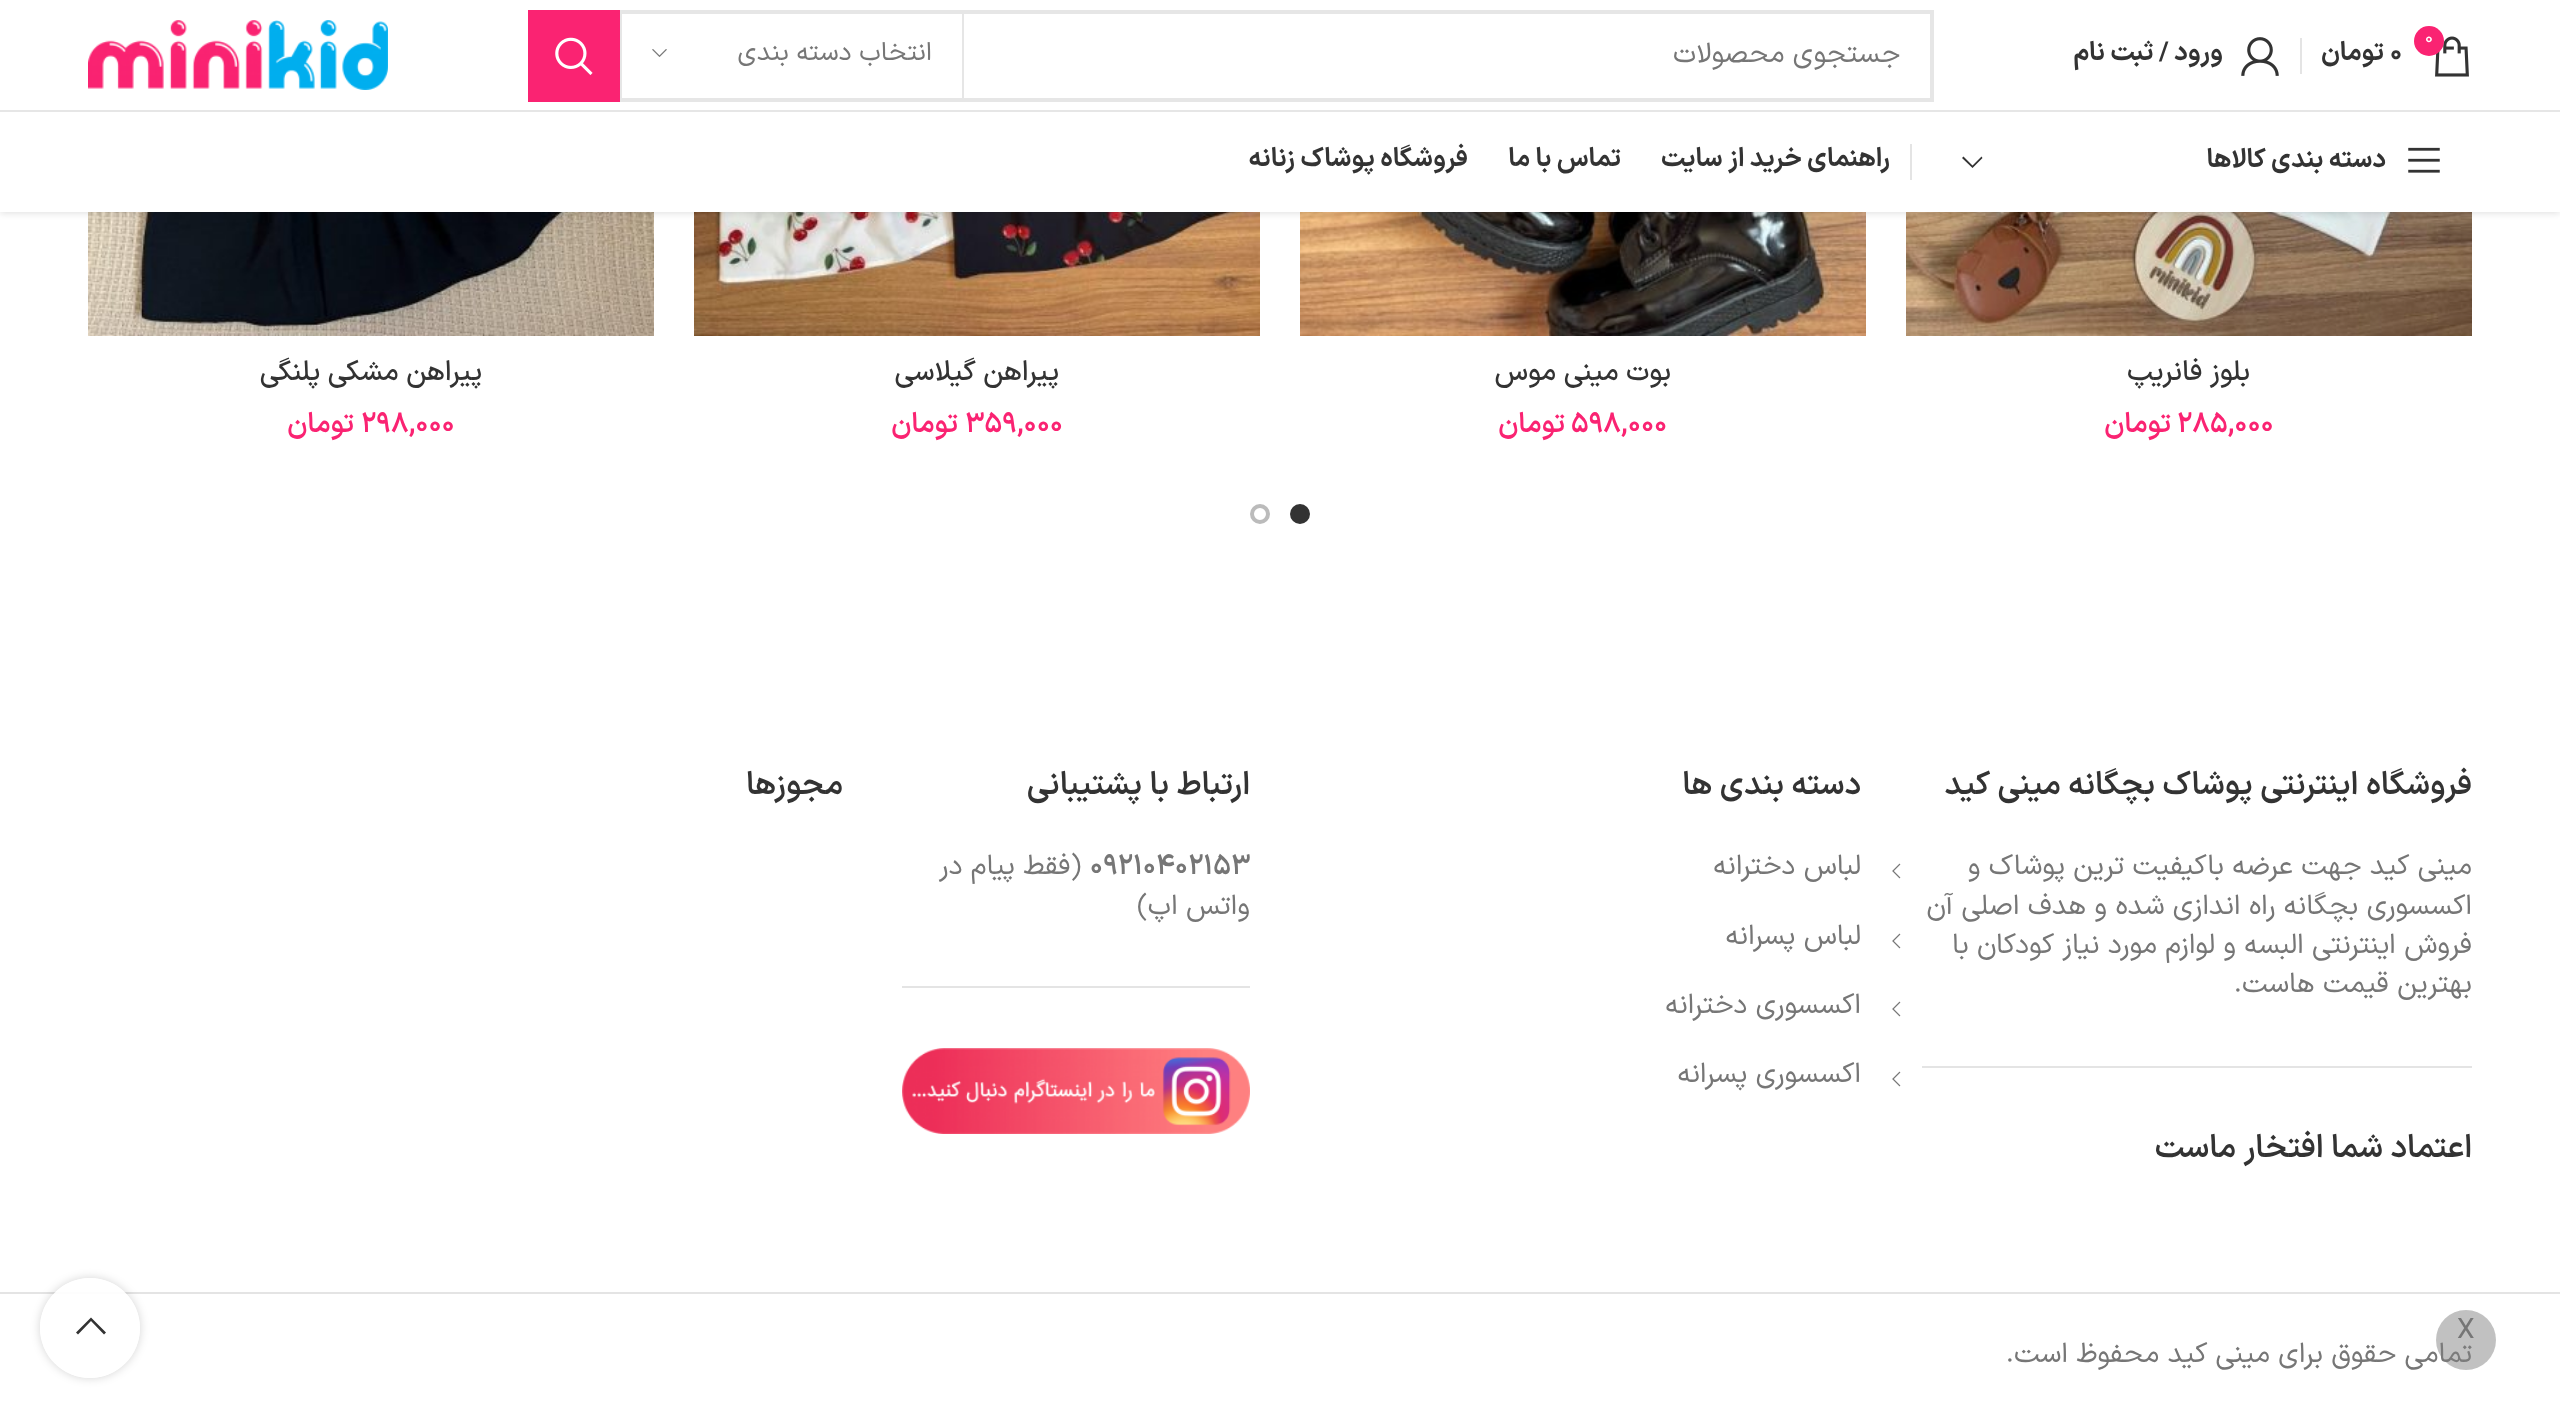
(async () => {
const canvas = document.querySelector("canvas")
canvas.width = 2560
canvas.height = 1418
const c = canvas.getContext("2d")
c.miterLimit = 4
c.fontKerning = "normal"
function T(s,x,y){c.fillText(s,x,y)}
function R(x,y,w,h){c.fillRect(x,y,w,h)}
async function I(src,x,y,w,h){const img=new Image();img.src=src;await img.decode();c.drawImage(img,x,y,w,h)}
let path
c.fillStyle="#fff"
R(0,0,2560,1418)
await I("7.png",1906,212,566,124)
await I("8.png",1300,212,566,124)
await I("9.png",694,212,566,124)
await I("10.png",88,212,566,124)
c.fillStyle="#0000001a"
c.filter="blur(3px)"
c.beginPath()
c.rect(0,2,2560,212)
c.fill()
c.filter="none"
c.fillStyle="#fff"
R(0,0,2560,110)
c.fillStyle="#e6e6e6"
R(0,110,2560,2)
await I("1.png",2435,36,34,41)
c.fillStyle="#fa2372"
c.beginPath()
c.arc(2429,41,15,0,7)
c.fill()
c.font="18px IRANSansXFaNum"
c.fillStyle="#fff"
T("0",2425,43)
c.font="bold 26px IRANSansXFaNum"
c.fillStyle="#333"
T("0",2390,60)
c.direction="rtl"
T("تومان",2384,60)
c.fillStyle="#e4e4e4"
R(2300,38,2,36)
await I("2.png",2241,37,38,39)
c.fillStyle="#333"
T("ورود / ثبت نام",2223,60)
c.strokeStyle="#e6e6e6"
c.lineWidth=4
c.strokeRect(530,12,1402,88)
c.font="28px IRANSansXFaNum"
c.fillStyle="#767676"
T("جستجوی محصولات",1900,62)
c.fillStyle="#e6e6e6"
R(962,14,2,84)
R(620,14,2,84)
c.font="26px IRANSansXFaNum"
c.fillStyle="#767676"
T("انتخاب دسته بندی",932,60)
await I("3.png",652,49,15,8)
c.fillStyle="#fa2372"
R(528,10,92,92)
await I("4.png",555,37,38,38)
await I("5.png",88,20,300,70)
c.fillStyle="#fff"
R(0,112,2560,100)
await I("6.png",2408,147,32,26)
c.font="bold 26px IRANSansXFaNum"
c.fillStyle="#333"
T("دسته بندی کالاها",2386,167)
path = new Path2D("M1981.5 156.5l-9 9l-9-9l-1.5 1.5l10.5 10l10-10z")
c.fill(path)
c.fillStyle="#e4e4e4"
R(1910,144,2,36)
c.fillStyle="#333"
T("راهنمای خرید از سایت",1890,166)
T("تماس با ما",1621,166)
T("فروشگاه پوشاک زنانه",1468,166)
c.font="500 28px IRANSansXFaNum"
T("بلوز فانریپ",2250,380)
c.direction="ltr"
c.font="600 28px IRANSansXFaNum"
c.fillStyle="#fa2372"
T("285,000",2177,432)
c.direction="rtl"
T("تومان",2171,432)
c.font="500 28px IRANSansXFaNum"
c.fillStyle="#333"
T("بوت مینی موس",1671,380)
c.direction="ltr"
c.font="600 28px IRANSansXFaNum"
c.fillStyle="#fa2372"
T("598,000",1571,432)
c.direction="rtl"
T("تومان",1565,432)
c.font="500 28px IRANSansXFaNum"
c.fillStyle="#333"
T("پیراهن گیلاسی",1059,380)
c.direction="ltr"
c.font="600 28px IRANSansXFaNum"
c.fillStyle="#fa2372"
T("359,000",965,432)
c.direction="rtl"
T("تومان",958,432)
c.font="500 28px IRANSansXFaNum"
c.fillStyle="#333"
T("پیراهن مشکی پلنگی",482,380)
c.direction="ltr"
c.font="600 28px IRANSansXFaNum"
c.fillStyle="#fa2372"
T("298,000",361,432)
c.direction="rtl"
T("تومان",354,432)
c.fillStyle="#333"
c.beginPath()
c.arc(1300,514,8,0,7)
c.fill()
c.strokeStyle="#333"
c.stroke()
c.beginPath()
c.arc(1260,514,8,0,7)
c.strokeStyle="#bbb"
c.stroke()
c.fillStyle="#e4e4e4"
R(1922,1066,550,2)
c.font="600 32px IRANSansXFaNum"
c.fillStyle="#333"
T("فروشگاه اینترنتی پوشاک بچگانه مینی کید",2472,794)
c.font="28px IRANSansXFaNum"
c.fillStyle="#767676"
T("مینی کید جهت عرضه باکیفیت ترین پوشاک و",2472,874)
T("اکسسوری بچگانه راه اندازی شده و هدف اصلی آن",2472,914)
T("فروش اینترنتی البسه و لوازم مورد نیاز کودکان با",2472,953)
T("بهترین قیمت هاست.",2472,992)
c.font="600 32px IRANSansXFaNum"
c.fillStyle="#333"
T("اعتماد شما افتخار ماست",2472,1157)
T("دسته بندی ها",1861,794)
await I("11.png",1892,863,9,16)
c.font="28px IRANSansXFaNum"
c.fillStyle="#767676"
T("لباس دخترانه",1861,874)
await I("11.png",1892,933,9,16)
T("لباس پسرانه",1861,944)
await I("11.png",1892,1001,9,16)
T("اکسسوری دخترانه",1861,1013)
await I("11.png",1892,1071,9,16)
T("اکسسوری پسرانه",1861,1082)
c.fillStyle="#e4e4e4"
R(902,986,348,2)
c.font="600 32px IRANSansXFaNum"
c.fillStyle="#333"
T("ارتباط با پشتیبانی",1250,794)
c.direction="ltr"
c.font="600 28px IRANSansXFaNum"
c.fillStyle="#767676"
T("09210402153",1090,874)
c.direction="rtl"
c.font="28px IRANSansXFaNum"
T("(فقط پیام در",1081,874)
T("واتس اپ)",1250,914)
await I("12.png",902,1048,348,86)
c.font="600 32px IRANSansXFaNum"
c.fillStyle="#333"
T("مجوزها",843,794)
c.fillStyle="#e4e4e4"
R(0,1292,2560,2)
c.font="28px IRANSansXFaNum"
c.fillStyle="#767676"
T("تمامی حقوق برای مینی کید محفوظ است.",2472,1362)
c.save()
path = new Path2D("M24 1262h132v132h-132zm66 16c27.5 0 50 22.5 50 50c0 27.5-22.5 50-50 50c-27.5 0-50-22.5-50-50c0-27.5 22.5-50 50-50z")
c.clip(path,"evenodd")
c.fillStyle="#0000002b"
c.filter="blur(5px)"
c.beginPath()
c.roundRect(40,1278,100,100,50)
c.fill()
c.filter="none"
c.restore()
c.fillStyle="#ffffffe6"
c.beginPath()
c.arc(90,1328,50,0,7)
c.fill()
c.fillStyle="#333"
path = new Path2D("M104 1334.5l2-2l-15-15l-15 15l2 2l13-13.5z")
c.fill(path)
c.fillStyle="#8080807d"
c.beginPath()
c.arc(2466,1340,30,0,7)
c.fill()
c.direction="ltr"
c.fillStyle="#767676"
T("X",2457,1338)
})()
